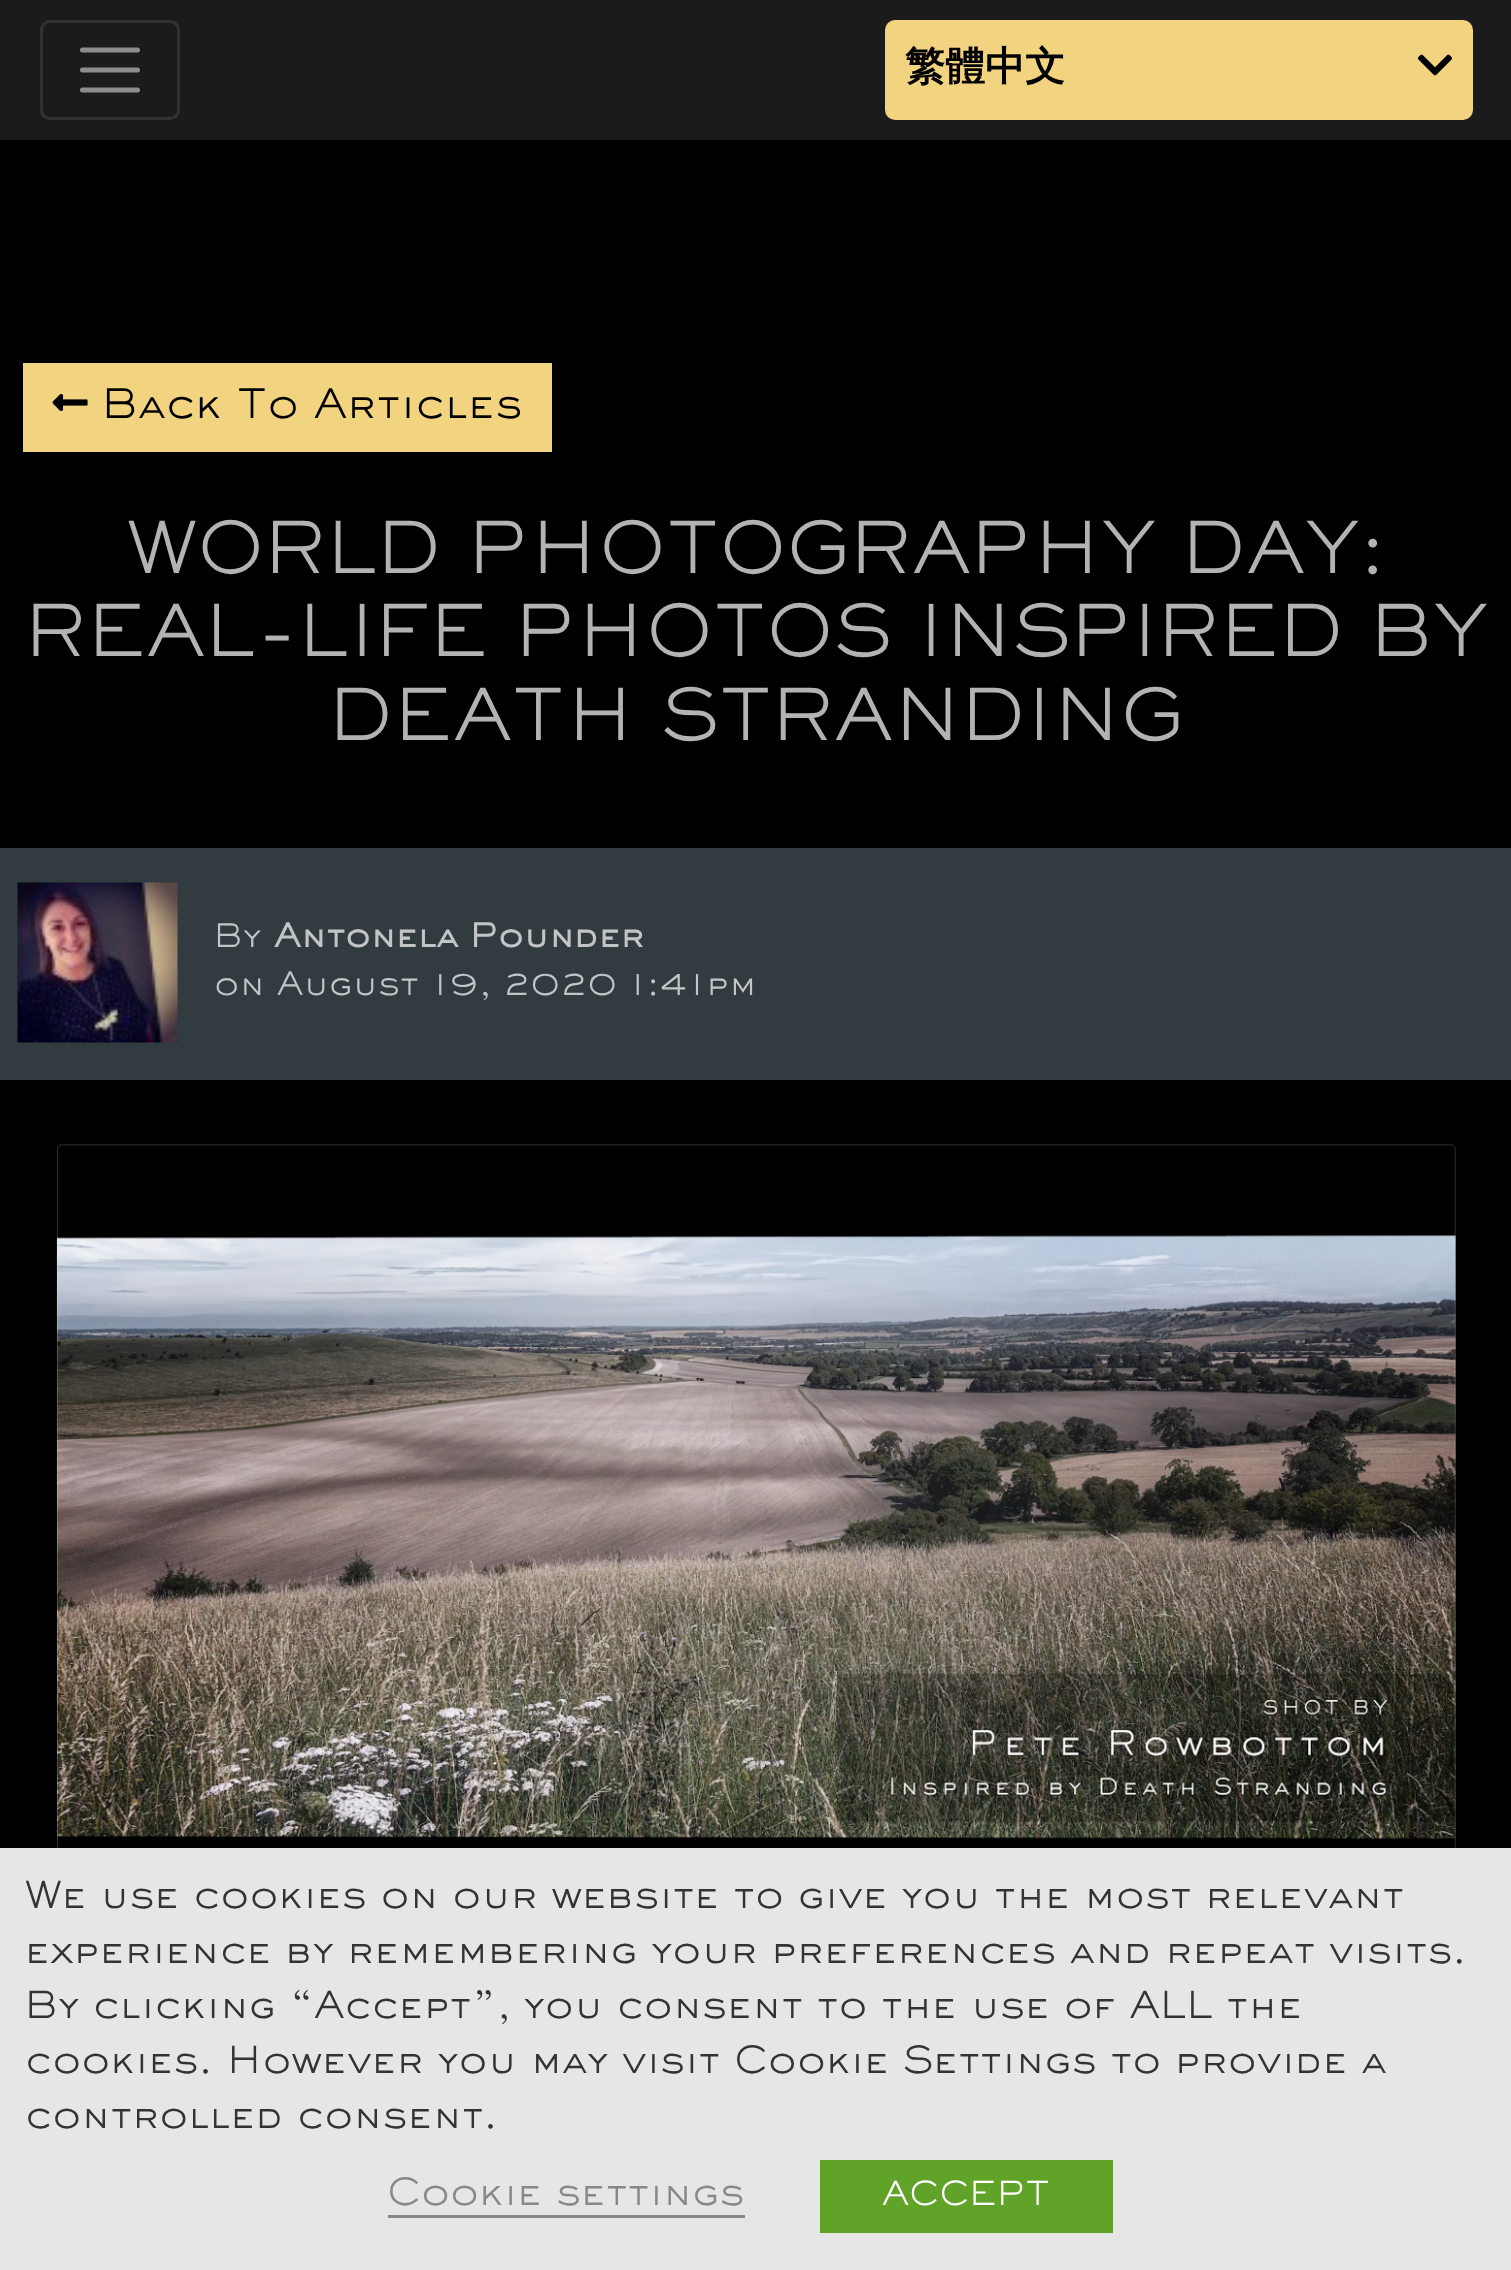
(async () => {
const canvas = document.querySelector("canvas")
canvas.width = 1511
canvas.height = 2270
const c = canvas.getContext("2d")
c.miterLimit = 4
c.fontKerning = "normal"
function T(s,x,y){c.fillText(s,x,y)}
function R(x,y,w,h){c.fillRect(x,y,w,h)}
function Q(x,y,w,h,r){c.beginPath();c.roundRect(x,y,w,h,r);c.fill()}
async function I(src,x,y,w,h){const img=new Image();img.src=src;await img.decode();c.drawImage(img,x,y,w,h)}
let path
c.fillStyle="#000"
R(0,0,1511,2270)
c.fillStyle="#1b1b1b"
R(0,0,1511,140)
c.beginPath()
c.roundRect(41.5,21.5,137,97,8.5)
c.strokeStyle="#323232"
c.lineWidth=3
c.stroke()
path = new Path2D("M82.5 50h55m-55 20h55m-55 20h55")
c.strokeStyle="#8d8d8d"
c.lineWidth=5
c.lineCap="round"
c.stroke(path)
c.fillStyle="#f2d480"
Q(885,20,588,100,10)
c.font="bold 40px WenQuanYi Zen Hei"
c.fillStyle="#000"
T("繁體中文",905,80)
await I("1.png",1418,54,34,22)
c.fillStyle="#f2d480"
R(23,363,529,89)
await I("2.png",52,393,36,19)
c.font="300 40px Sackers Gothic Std"
c.fillStyle="#000"
T("Back To Articles",102,418)
c.font="300 70px Sackers Gothic Std"
c.fillStyle="#b3b3b3"
T("WORLD PHOTOGRAPHY DAY:",127,573)
T("REAL-LIFE PHOTOS INSPIRED BY",25,656)
T("DEATH STRANDING",329,740)
c.fillStyle="#323b40"
R(0,848,1511,232)
await I("3.png",17,882,161,161)
c.font="300 32px Sackers Gothic Std"
c.fillStyle="#c2c4c6"
T("By",214,947)
c.font="bold 32px Sackers Gothic Std"
T("Antonela Pounder",274,947)
c.font="300 32px Sackers Gothic Std"
T("on August 19, 2020 1:41pm",214,995)
await I("4.png",56,1144,1400,787)
c.fillStyle="#ffffffe6"
R(0,1848,1511,422)
c.font="300 36.65px Sackers Gothic Std"
c.fillStyle="#333"
T("We use cookies on our website to give you the most relevant",25,1908)
T("experience by remembering your preferences and repeat visits.",25,1963)
T("By clicking “Accept”, you consent to the use of ALL the",25,2018)
T("cookies. However you may visit Cookie Settings to provide a",25,2073)
T("controlled consent.",25,2128)
c.fillStyle="#898888"
T("Cookie settings",387,2205)
R(388,2215,357,3)
c.fillStyle="#61a229"
R(820,2160,293,73)
c.font="300 32.5px Sackers Gothic Std"
c.fillStyle="#fff"
T("ACCEPT",882,2205)
})()
